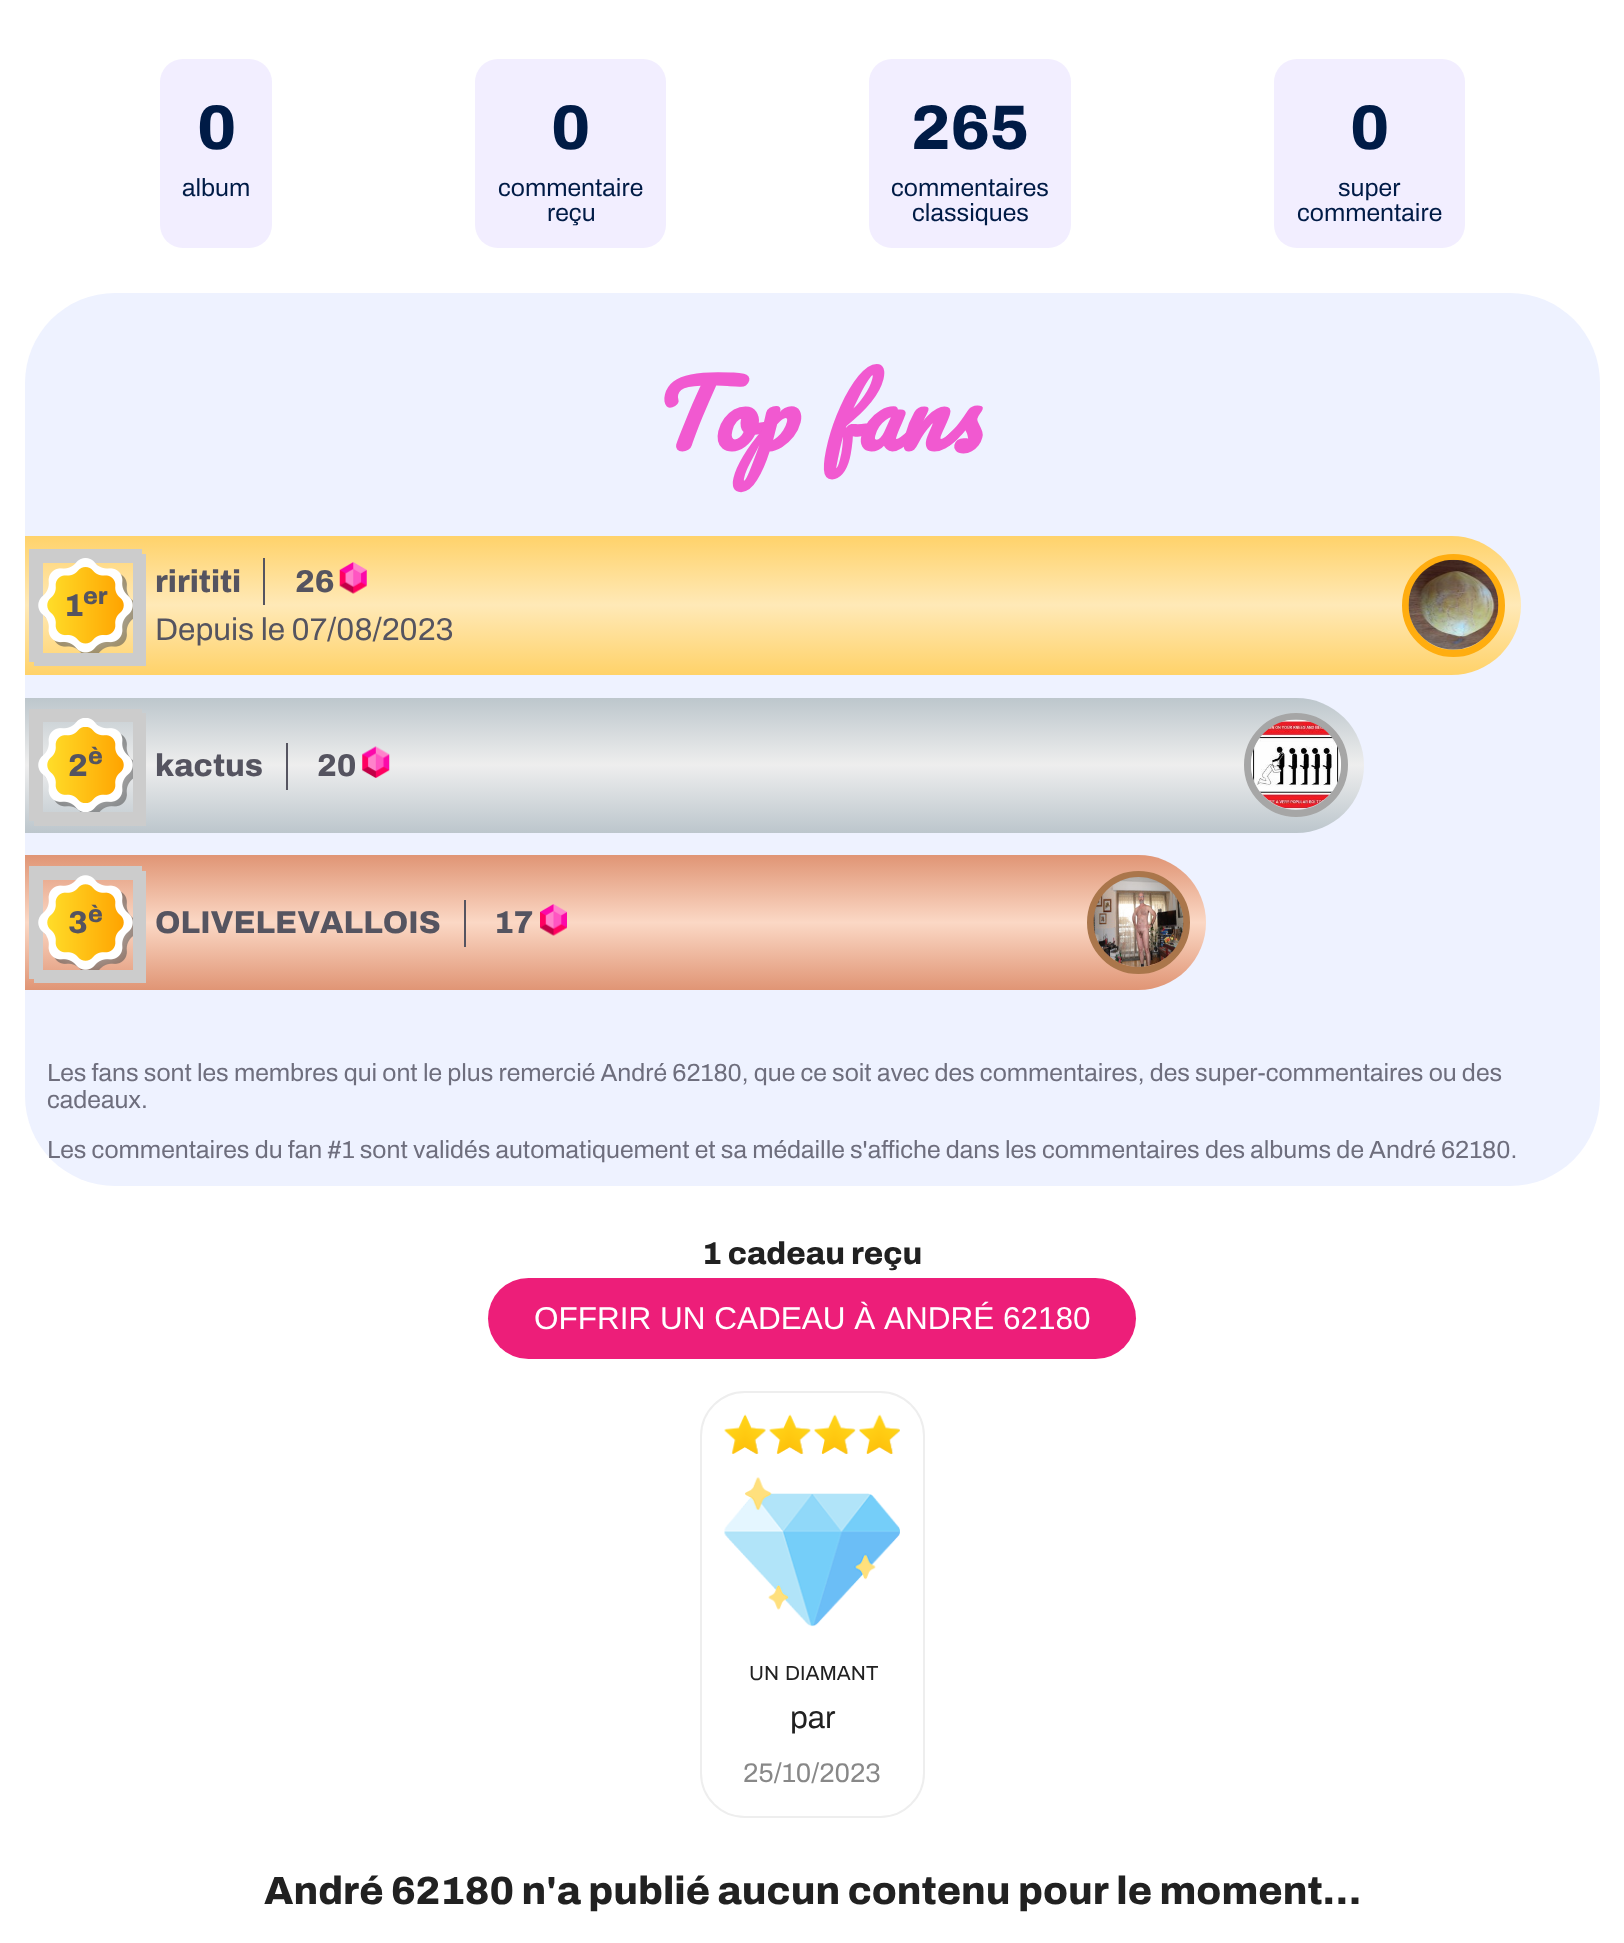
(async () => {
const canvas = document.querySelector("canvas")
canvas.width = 1624
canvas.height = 1943
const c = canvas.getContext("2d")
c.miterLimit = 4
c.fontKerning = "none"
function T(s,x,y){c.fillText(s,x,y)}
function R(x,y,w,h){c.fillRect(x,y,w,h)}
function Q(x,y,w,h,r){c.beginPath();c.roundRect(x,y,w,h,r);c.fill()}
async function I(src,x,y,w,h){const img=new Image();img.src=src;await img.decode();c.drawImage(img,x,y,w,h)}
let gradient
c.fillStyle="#fff"
R(0,0,1624,1943)
c.fillStyle="#f2eeff"
Q(160,59,112,189,23)
c.font="800 63px Archivo"
c.fillStyle="#001b46"
T("0",197,149)
c.font="24.75px Archivo"
T("album",182,196)
c.fillStyle="#f2eeff"
Q(475,59,191,189,23)
c.font="800 63px Archivo"
c.fillStyle="#001b46"
T("0",551,149)
c.font="24.75px Archivo"
T("commentaire",498,196)
T("reçu",547,221)
c.fillStyle="#f2eeff"
Q(869,59,202,189,23)
c.font="800 63px Archivo"
c.fillStyle="#001b46"
T("265",911,149)
c.font="24.75px Archivo"
T("commentaires",891,196)
T("classiques",912,221)
c.fillStyle="#f2eeff"
Q(1274,59,191,189,23)
c.font="800 63px Archivo"
c.fillStyle="#001b46"
T("0",1350,149)
c.font="24.75px Archivo"
T("super",1338,196)
T("commentaire",1297,221)
c.fillStyle="#eef2ff"
Q(25,293,1575,893,90)
c.wordSpacing="5px"
c.font="italic bold 90px Pacifico"
c.fillStyle="#f159d0"
T("Top fans",648,451)
gradient = c.createLinearGradient(773,535,773,675)
gradient.addColorStop(0,"#ffd269")
gradient.addColorStop(.5,"#ffe9b7")
gradient.addColorStop(1,"#ffd269")
c.fillStyle = gradient
c.beginPath()
c.roundRect(25,536,1496,139,[0,69.5,69.5,0])
c.fill()
c.strokeStyle="#ccc"
c.lineWidth=9
c.strokeRect(38.5,558.5,103,103)
await I("2.png",43,563,90,90)
c.strokeRect(33.5,553.5,104,104)
await I("1.png",38,558,95,95)
await I("3.png",47,567,77,77)
c.wordSpacing="0px"
c.font="800 31.5px Archivo"
c.fillStyle="#555460"
T("1",64,616)
c.font="800 24px Archivo"
T("er",83,604)
R(263,558,2,47)
c.font="800 31.5px Archivo"
T("rirititi",155,592)
T("26",295,592)
await I("4.png",339,562,28,32)
c.font="31.5px Archivo"
T("Depuis le 07/08/2023",155,640)
c.beginPath()
c.arc(1453.5,605.5,48,0,7)
c.strokeStyle="#ffad0f"
c.lineWidth=7
c.stroke()
await I("5.png",1408,559,91,91)
gradient = c.createLinearGradient(694,697,694,833)
gradient.addColorStop(0,"#bcc6cc")
gradient.addColorStop(.5,"#eee")
gradient.addColorStop(1,"#bcc6cc")
c.fillStyle = gradient
c.beginPath()
c.roundRect(25,698,1339,135,[0,67.5,67.5,0])
c.fill()
c.strokeStyle="#ccc"
c.lineWidth=9
c.strokeRect(38.5,717.5,103,104)
await I("7.png",43,723,90,89)
c.strokeRect(33.5,713.5,104,103)
await I("6.png",38,718,95,94)
await I("8.png",47,727,77,76)
c.font="800 31.5px Archivo"
c.fillStyle="#555460"
T("2",68,776)
c.font="800 24px Archivo"
T("è",88,764)
R(286,743,2,47)
c.font="800 31.5px Archivo"
T("kactus",155,776)
T("20",317,776)
await I("9.png",362,746,28,32)
c.beginPath()
c.arc(1296,765,48.5,0,7)
c.strokeStyle="#a6a6a6"
c.lineWidth=7
c.stroke()
await I("10.png",1251,719,90,91)
gradient = c.createLinearGradient(615,855,615,990)
gradient.addColorStop(0,"#e09575")
gradient.addColorStop(.5,"#fbd8c5")
gradient.addColorStop(1,"#e09575")
c.fillStyle = gradient
c.beginPath()
c.roundRect(25,855,1181,135,[0,67.5,67.5,0])
c.fill()
c.strokeStyle="#ccc"
c.lineWidth=9
c.strokeRect(38.5,875.5,103,103)
await I("12.png",44,881,89,89)
c.strokeRect(33.5,870.5,104,104)
await I("11.png",38,875,95,95)
await I("13.png",47,884,77,77)
c.fillStyle="#555460"
T("3",68,933)
c.font="800 24px Archivo"
T("è",88,922)
R(464,900,2,47)
c.font="800 31.5px Archivo"
T("OLIVELEVALLOIS",155,933)
T("17",494,933)
await I("14.png",540,904,27,32)
c.beginPath()
c.arc(1138.5,922.5,48,0,7)
c.strokeStyle="#aa764b"
c.lineWidth=7
c.stroke()
await I("15.png",1093,877,91,90)
c.font="24.75px Archivo"
c.fillStyle="#6e6e7d"
T("Les fans sont les membres qui ont le plus remercié André 62180, que ce soit avec des commentaires, des super-commentaires ou des",47,1081)
T("cadeaux.",47,1108)
T("Les commentaires du fan #1 sont validés automatiquement et sa médaille s'affiche dans les commentaires des albums de André 62180.",47,1158)
c.font="800 31.5px Archivo"
c.fillStyle="#212121"
T("1 cadeau reçu",702,1264)
c.fillStyle="#ed1e79"
Q(488,1278,648,81,40.5)
c.font="31.5px Liberation Sans"
c.fillStyle="#fff"
T("OFFRIR UN CADEAU À ANDRÉ 62180",534,1329)
c.beginPath()
c.roundRect(701,1392,223,425,44)
c.strokeStyle="#eee"
c.lineWidth=2
c.stroke()
await I("16.png",724,1414,176,213)
c.font="20.5px Archivo"
c.fillStyle="#212121"
T("UN",749,1680)
T("DIAMANT",785,1680)
c.font="31.5px Archivo"
T("par",790,1728)
c.font="27px Archivo"
c.fillStyle="#888"
T("25/10/2023",743,1782)
c.font="800 39.4px Archivo"
c.fillStyle="#212121"
T("André 62180 n'a publié aucun contenu pour le moment…",264,1904)
})()
